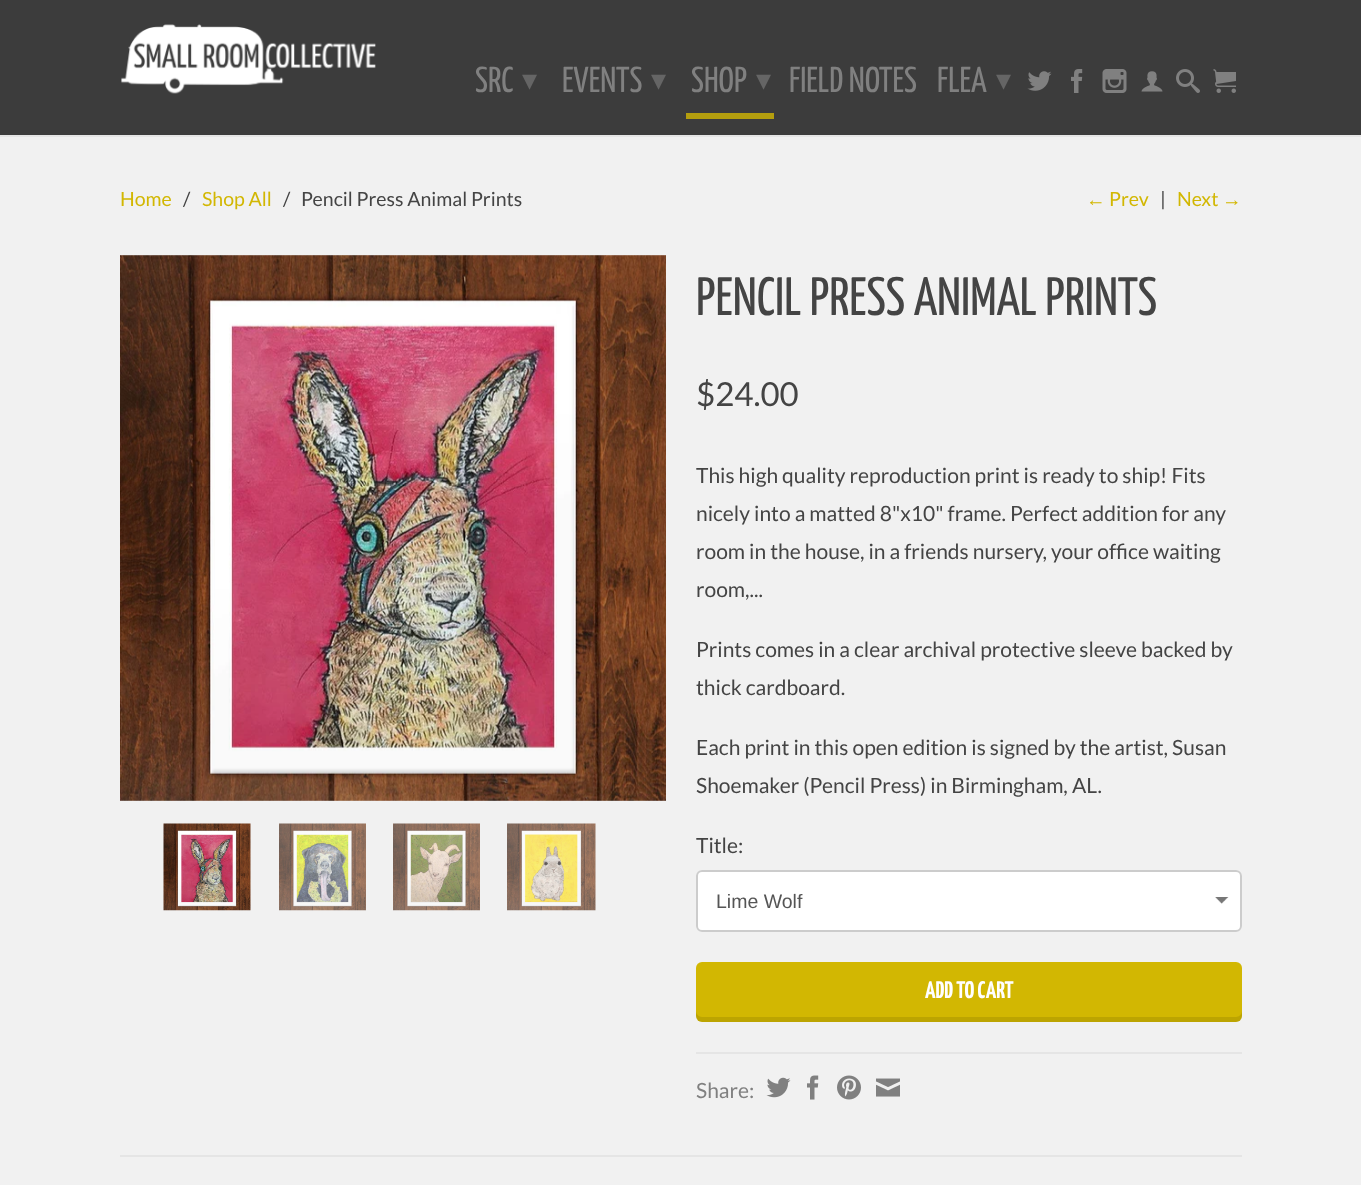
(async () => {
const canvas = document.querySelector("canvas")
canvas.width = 1361
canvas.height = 1185
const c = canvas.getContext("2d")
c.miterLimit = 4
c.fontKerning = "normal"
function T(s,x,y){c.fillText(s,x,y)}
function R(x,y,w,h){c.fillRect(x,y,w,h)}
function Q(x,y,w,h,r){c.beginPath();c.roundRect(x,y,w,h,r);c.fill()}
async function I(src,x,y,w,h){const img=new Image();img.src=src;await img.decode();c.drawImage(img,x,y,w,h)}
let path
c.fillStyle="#f1f1f1"
R(0,0,1361,1185)
c.fillStyle="#3c3c3c"
R(0,0,1361,135)
c.fillStyle="#e5e5e5"
R(0,135,1361,2)
await I("1.png",121,24,255,70)
c.font="36px Yanone Kaffeesatz"
c.fillStyle="#808080"
T("SRC",475,92)
c.font="30px DejaVu Sans"
c.fillStyle="#656565"
T("▾",522,90)
c.font="36px Yanone Kaffeesatz"
c.fillStyle="#808080"
T("EVENTS",562,92)
c.font="30px DejaVu Sans"
c.fillStyle="#656565"
T("▾",651,90)
c.font="36px Yanone Kaffeesatz"
c.fillStyle="#808080"
T("SHOP",691,92)
c.font="30px DejaVu Sans"
c.fillStyle="#656565"
T("▾",756,90)
c.fillStyle="#b49e0e"
R(686,113,88,6)
c.font="36px Yanone Kaffeesatz"
c.fillStyle="#808080"
T("FIELD NOTES",789,92)
T("FLEA",937,92)
c.font="30px DejaVu Sans"
c.fillStyle="#656565"
T("▾",996,90)
await I("2.png",1027,71,25,20)
await I("3.png",1071,69,12,24)
await I("4.png",1102,69,25,24)
await I("5.png",1141,71,22,21)
await I("6.png",1176,69,24,24)
await I("7.png",1213,69,23,24)
c.font="19.5px Lato"
c.fillStyle="#d2b702"
T("Home",120,206)
c.fillStyle="#444"
T("/",183,206)
c.fillStyle="#d2b702"
T("Shop All",202,206)
c.fillStyle="#444"
T("/",283,206)
T("Pencil Press Animal Prints",301,206)
c.font="19.5px Liberation Serif"
c.fillStyle="#d2b702"
T("←",1086,206)
c.font="19.5px Lato"
T("Prev",1109,206)
c.fillStyle="#444"
T("|",1160,206)
c.fillStyle="#d2b702"
T("Next",1177,206)
c.font="19.5px Liberation Serif"
T("→",1222,206)
await I("8.png",120,255,546,546)
await I("9.png",163,823,88,88)
await I("10.png",279,823,87,88)
await I("11.png",393,823,87,88)
await I("12.png",507,823,89,88)
c.font="54px Yanone Kaffeesatz"
c.fillStyle="#444"
T("PENCIL PRESS ANIMAL PRINTS",696,315)
c.font="33px Lato"
T("$24.00",696,406)
c.font="21px Lato"
T("This high quality reproduction print is ready to ship! Fits",696,483)
T("nicely into a matted 8\"x10\" frame. Perfect addition for any",696,521)
T("room in the house, in a friends nursery, your office waiting",696,559)
T("room,...",696,597)
T("Prints comes in a clear archival protective sleeve backed by",696,657)
T("thick cardboard.",696,695)
T("Each print in this open edition is signed by the artist, Susan",696,755)
T("Shoemaker (Pencil Press) in Birmingham, AL.",696,793)
T("Title:",696,853)
c.fillStyle="#fff"
Q(696,870,546,62,6)
await I("13.png",1215,897,14,7)
c.beginPath()
c.roundRect(697,871,544,60,5)
c.strokeStyle="#ccc"
c.lineWidth=2
c.stroke()
c.font="19.5px Liberation Sans"
c.fillStyle="#555"
T("Lime Wolf",716,908)
c.fillStyle="#d2b702"
Q(696,962,546,60,6)
c.fillStyle="#0000001a"
path = new Path2D("M696 1011v5c0 3 3 6 6 6h534c3 0 6-3 6-6v-5c0 3-3 6-6 6h-534c-3 0-6-3-6-6z")
c.fill(path)
c.font="bold 24px Yanone Kaffeesatz"
c.fillStyle="#fff"
T("ADD TO CART",925,998)
c.fillStyle="#e5e5e5"
R(696,1052,546,2)
c.font="21px Lato"
c.fillStyle="#808080"
T("Share:",696,1098)
await I("14.png",766,1077,25,21)
await I("15.png",807,1075,12,25)
await I("16.png",837,1075,24,25)
await I("17.png",876,1078,24,19)
c.fillStyle="#e5e5e5"
R(120,1155,1122,2)
})()
